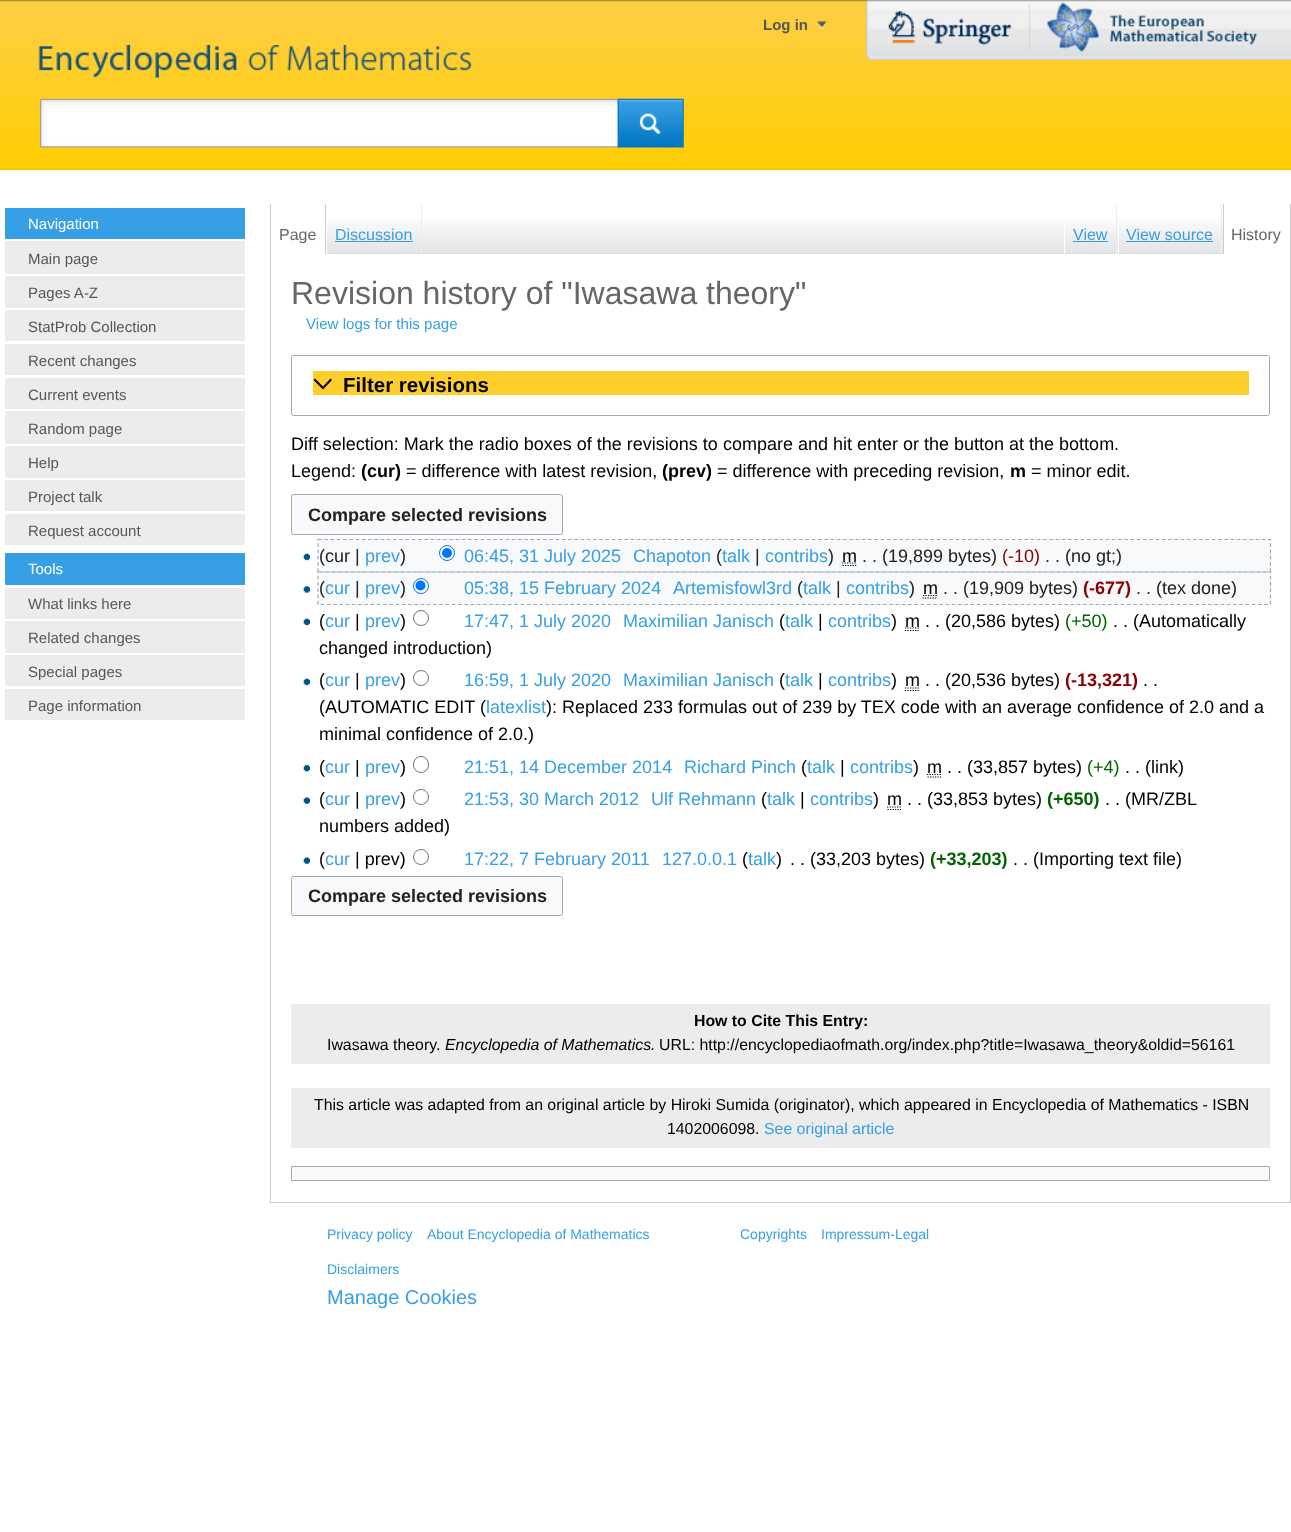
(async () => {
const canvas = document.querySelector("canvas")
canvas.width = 1291
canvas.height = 1532
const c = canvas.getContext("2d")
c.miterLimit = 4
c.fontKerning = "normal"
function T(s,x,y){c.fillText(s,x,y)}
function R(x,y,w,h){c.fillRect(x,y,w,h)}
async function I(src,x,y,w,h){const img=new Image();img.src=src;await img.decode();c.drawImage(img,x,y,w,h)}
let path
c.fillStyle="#fff"
R(0,0,1291,1532)
await I("1.png",0,0,1291,170)
await I("2.png",817,21,10,9)
c.font="bold 15px Liberation Sans"
c.fillStyle="#575758"
T("Log in",763,30)
await I("3.png",866,0,425,60)
await I("4.png",38,45,434,33)
await I("5.png",40,98,644,50)
c.fillStyle="#369fe5"
R(5,208,240,31)
c.font="15px Liberation Sans"
c.fillStyle="#fff"
T("Navigation",28,229)
c.fillStyle="#ececed"
R(5,241,240,33)
c.fillStyle="#575758"
T("Main page",28,264)
c.fillStyle="#ececed"
R(5,276,240,32)
c.fillStyle="#575758"
T("Pages A-Z",28,298)
c.fillStyle="#ececed"
R(5,310,240,31)
c.fillStyle="#575758"
T("StatProb Collection",28,332)
c.fillStyle="#ececed"
R(5,344,240,31)
c.fillStyle="#575758"
T("Recent changes",28,366)
c.fillStyle="#ececed"
R(5,378,240,31)
c.fillStyle="#575758"
T("Current events",28,400)
c.fillStyle="#ececed"
R(5,411,240,33)
c.fillStyle="#575758"
T("Random page",28,434)
c.fillStyle="#ececed"
R(5,446,240,32)
c.fillStyle="#575758"
T("Help",28,468)
c.fillStyle="#ececed"
R(5,480,240,31)
c.fillStyle="#575758"
T("Project talk",28,502)
c.fillStyle="#ececed"
R(5,514,240,31)
c.fillStyle="#575758"
T("Request account",28,536)
c.fillStyle="#369fe5"
R(5,553,240,32)
c.fillStyle="#fff"
T("Tools",28,574)
c.fillStyle="#ececed"
R(5,588,240,31)
c.fillStyle="#575758"
T("What links here",28,609)
c.fillStyle="#ececed"
R(5,621,240,32)
c.fillStyle="#575758"
T("Related changes",28,643)
c.fillStyle="#ececed"
R(5,655,240,31)
c.fillStyle="#575758"
T("Special pages",28,677)
c.fillStyle="#ececed"
R(5,689,240,31)
c.fillStyle="#575758"
T("Page information",28,711)
c.strokeStyle="#ccc"
c.strokeRect(270.5,253.5,1020,949)
await I("6.png",327,219,896,35)
c.fillStyle="#fff"
R(271,253,54,1)
c.fillStyle="#ccc"
R(325,204,1,50)
R(270,204,1,50)
c.font="16px Liberation Sans"
c.fillStyle="#666"
T("Page",279,240)
c.fillStyle="#eee"
R(421,204,1,50)
c.fillStyle="#fff"
R(326,253,1,1)
c.fillStyle="#369fe5"
T("Discussion",335,240)
R(335,241,78,1)
c.fillStyle="#eee"
R(1116,204,1,50)
c.fillStyle="#fff"
R(1064,219,1,35)
c.fillStyle="#369fe5"
T("View",1073,240)
R(1073,241,35,1)
c.fillStyle="#eee"
R(1221,204,1,50)
c.fillStyle="#fff"
R(1118,219,1,35)
c.fillStyle="#369fe5"
T("View source",1126,240)
R(1126,241,87,1)
c.fillStyle="#fff"
R(1224,253,66,1)
c.fillStyle="#ccc"
R(1290,204,1,50)
R(1223,204,1,50)
c.fillStyle="#666"
T("History",1231,240)
c.font="32px Liberation Sans"
T("Revision history of \"Iwasawa theory\"",291,304)
c.font="15.1px Liberation Sans"
c.fillStyle="#369fe5"
T("View logs for this page",306,329)
c.beginPath()
c.roundRect(291.5,355.5,978,60,2)
c.strokeStyle="#a2a9b1"
c.stroke()
c.fillStyle="#fece2c"
R(313,371,936,24)
c.fillStyle="#000"
path = new Path2D("M330.5 378.5l-7.5 8l-8-8l-1.5 1.5l9.5 9.5l9-9.5z")
c.fill(path)
c.font="bold 20.5px Liberation Sans"
T("Filter revisions",343,392)
c.font="18px Liberation Sans"
T("Diff selection: Mark the radio boxes of the revisions to compare and hit enter or the button at the bottom.",291,450)
T("Legend:",291,477)
c.font="bold 18px Liberation Sans"
T("(cur)",361,477)
c.font="18px Liberation Sans"
T("= difference with latest revision,",406,477)
c.font="bold 18px Liberation Sans"
T("(prev)",662,477)
c.font="18px Liberation Sans"
T("= difference with preceding revision,",717,477)
c.font="bold 18px Liberation Sans"
T("m",1010,477)
c.font="18px Liberation Sans"
T("= minor edit.",1031,477)
c.fillStyle="#f8f9fa"
c.beginPath()
c.roundRect(291.5,494.5,271,40,2)
c.fill()
c.stroke()
c.font="bold 18px Liberation Sans"
c.fillStyle="#202122"
T("Compare selected revisions",308,521)
c.fillStyle="#f8f9fa"
R(319,540,951,31)
await I("7.png",303,553,7,8)
c.font="18px Liberation Sans"
c.fillStyle="#202122"
T("(cur |",319,562)
c.fillStyle="#369fe5"
T("prev",365,562)
c.fillStyle="#202122"
T(")",400,562)
c.fillStyle="#fff"
c.beginPath()
c.arc(447,553,7.5,0,7)
c.fill()
c.strokeStyle="#0075ff"
c.stroke()
c.fillStyle="#0075ff"
c.beginPath()
c.arc(447,553,5,0,7)
c.fill()
c.fillStyle="#369fe5"
T("06:45, 31 July 2025",464,562)
T("Chapoton",633,562)
c.fillStyle="#202122"
T("(",716,562)
c.fillStyle="#369fe5"
T("talk",722,562)
c.fillStyle="#202122"
T("|",755,562)
c.fillStyle="#369fe5"
T("contribs",765,562)
c.fillStyle="#202122"
T(")",828,562)
c.fillStyle="#000"
T("m",842,562)
path = new Path2D("M842.5 565.5h15m-15.5-2.5h15")
c.strokeStyle="#000"
c.lineWidth=1.2
c.setLineDash([1.25,1.25])
c.stroke(path)
c.fillStyle="#202122"
T(". . (19,899 bytes)",862,562)
c.fillStyle="#8b0000"
T("(-10)",1002,562)
c.fillStyle="#202122"
T(". . (no gt;)",1045,562)
path = new Path2D("M318 539.5h952.5v32.5h-952.5z")
c.strokeStyle="#a2a9b1"
c.setLineDash([3.75,2.5])
c.stroke(path)
c.fillStyle="#f8f9fa"
R(319,573,951,31)
await I("8.png",303,586,7,7)
c.fillStyle="#202122"
T("(",319,594)
c.fillStyle="#369fe5"
T("cur",325,594)
c.fillStyle="#202122"
T("|",355,594)
c.fillStyle="#369fe5"
T("prev",365,594)
c.fillStyle="#202122"
T(")",400,594)
c.fillStyle="#fff"
c.beginPath()
c.arc(421,586,7.5,0,7)
c.fill()
c.strokeStyle="#0075ff"
c.lineWidth=1
c.setLineDash([])
c.stroke()
c.fillStyle="#0075ff"
c.beginPath()
c.arc(420.5,585.5,5,0,7)
c.fill()
c.fillStyle="#369fe5"
T("05:38, 15 February 2024",464,594)
T("Artemisfowl3rd",673,594)
c.fillStyle="#202122"
T("(",797,594)
c.fillStyle="#369fe5"
T("talk",803,594)
c.fillStyle="#202122"
T("|",836,594)
c.fillStyle="#369fe5"
T("contribs",846,594)
c.fillStyle="#202122"
T(")",909,594)
c.fillStyle="#000"
T("m",923,594)
path = new Path2D("M922.5 598h15m-14.5-2.5h15")
c.strokeStyle="#000"
c.lineWidth=1.2
c.setLineDash([1.25,1.25])
c.stroke(path)
c.fillStyle="#202122"
T(". . (19,909 bytes)",943,594)
c.font="bold 18px Liberation Sans"
c.fillStyle="#8b0000"
T("(-677)",1083,594)
c.font="18px Liberation Sans"
c.fillStyle="#202122"
T(". . (tex done)",1136,594)
path = new Path2D("M318 572h952.5v32.5h-952.5z")
c.strokeStyle="#a2a9b1"
c.setLineDash([3.75,2.5])
c.stroke(path)
await I("7.png",303,618,7,8)
c.fillStyle="#000"
T("(",319,627)
c.fillStyle="#369fe5"
T("cur",325,627)
c.fillStyle="#000"
T("|",355,627)
c.fillStyle="#369fe5"
T("prev",365,627)
c.fillStyle="#000"
T(")",400,627)
c.beginPath()
c.arc(421,618,7.5,0,7)
c.strokeStyle="#767676"
c.lineWidth=1
c.setLineDash([])
c.stroke()
c.fillStyle="#369fe5"
T("17:47, 1 July 2020",464,627)
T("Maximilian Janisch",623,627)
c.fillStyle="#000"
T("(",779,627)
c.fillStyle="#369fe5"
T("talk",785,627)
c.fillStyle="#000"
T("|",818,627)
c.fillStyle="#369fe5"
T("contribs",828,627)
c.fillStyle="#000"
T(")",891,627)
path = new Path2D("M905 630.5h15m-15-2.5h15")
c.strokeStyle="#000"
c.lineWidth=1.2
c.setLineDash([1.25,1.25])
c.stroke(path)
T("m . . (20,586 bytes)",905,627)
c.fillStyle="#006400"
T("(+50)",1065,627)
c.fillStyle="#000"
T(". . (Automatically",1113,627)
T("changed introduction)",319,654)
await I("7.png",303,678,7,8)
T("(",319,686)
c.fillStyle="#369fe5"
T("cur",325,686)
c.fillStyle="#000"
T("|",355,686)
c.fillStyle="#369fe5"
T("prev",365,686)
c.fillStyle="#000"
T(")",400,686)
c.beginPath()
c.arc(421,678,7.5,0,7)
c.strokeStyle="#767676"
c.lineWidth=1
c.setLineDash([])
c.stroke()
c.fillStyle="#369fe5"
T("16:59, 1 July 2020",464,686)
T("Maximilian Janisch",623,686)
c.fillStyle="#000"
T("(",779,686)
c.fillStyle="#369fe5"
T("talk",785,686)
c.fillStyle="#000"
T("|",818,686)
c.fillStyle="#369fe5"
T("contribs",828,686)
c.fillStyle="#000"
T(")",891,686)
path = new Path2D("M905 690.5h15m-15-2.5h15")
c.strokeStyle="#000"
c.lineWidth=1.2
c.setLineDash([1.25,1.25])
c.stroke(path)
T("m . . (20,536 bytes)",905,686)
c.font="bold 18px Liberation Sans"
c.fillStyle="#8b0000"
T("(-13,321)",1065,686)
c.font="18px Liberation Sans"
c.fillStyle="#000"
T(". .",1143,686)
T("(AUTOMATIC EDIT (",319,713)
c.fillStyle="#369fe5"
T("latexlist",486,713)
c.fillStyle="#000"
T("): Replaced 233 formulas out of 239 by TEX code with an average confidence of 2.0 and a",546,713)
T("minimal confidence of 2.0.)",319,740)
await I("9.png",303,764,7,8)
T("(",319,773)
c.fillStyle="#369fe5"
T("cur",325,773)
c.fillStyle="#000"
T("|",355,773)
c.fillStyle="#369fe5"
T("prev",365,773)
c.fillStyle="#000"
T(")",400,773)
c.beginPath()
c.roundRect(413.5,756.5,15,16,7.5)
c.strokeStyle="#767676"
c.lineWidth=1
c.setLineDash([])
c.stroke()
c.fillStyle="#369fe5"
T("21:51, 14 December 2014",464,773)
T("Richard Pinch",684,773)
c.fillStyle="#000"
T("(",801,773)
c.fillStyle="#369fe5"
T("talk",807,773)
c.fillStyle="#000"
T("|",840,773)
c.fillStyle="#369fe5"
T("contribs",850,773)
c.fillStyle="#000"
T(")",913,773)
path = new Path2D("M927.5 777h15m-15.5-2.5h15")
c.strokeStyle="#000"
c.lineWidth=1.2
c.setLineDash([1.25,1.25])
c.stroke(path)
T("m . . (33,857 bytes)",927,773)
c.fillStyle="#006400"
T("(+4)",1087,773)
c.fillStyle="#000"
T(". . (link)",1125,773)
await I("10.png",303,797,7,7)
T("(",319,805)
c.fillStyle="#369fe5"
T("cur",325,805)
c.fillStyle="#000"
T("|",355,805)
c.fillStyle="#369fe5"
T("prev",365,805)
c.fillStyle="#000"
T(")",400,805)
c.beginPath()
c.arc(421,797,7.5,0,7)
c.strokeStyle="#767676"
c.lineWidth=1
c.setLineDash([])
c.stroke()
c.fillStyle="#369fe5"
T("21:53, 30 March 2012",464,805)
T("Ulf Rehmann",651,805)
c.fillStyle="#000"
T("(",761,805)
c.fillStyle="#369fe5"
T("talk",767,805)
c.fillStyle="#000"
T("|",800,805)
c.fillStyle="#369fe5"
T("contribs",810,805)
c.fillStyle="#000"
T(")",873,805)
path = new Path2D("M887.5 809.5h15m-15.5-2.5h15")
c.strokeStyle="#000"
c.lineWidth=1.2
c.setLineDash([1.25,1.25])
c.stroke(path)
T("m . . (33,853 bytes)",887,805)
c.font="bold 18px Liberation Sans"
c.fillStyle="#006400"
T("(+650)",1047,805)
c.font="18px Liberation Sans"
c.fillStyle="#000"
T(". . (MR/ZBL",1105,805)
T("numbers added)",319,832)
await I("10.png",303,857,7,7)
T("(",319,865)
c.fillStyle="#369fe5"
T("cur",325,865)
c.fillStyle="#000"
T("| prev)",355,865)
c.beginPath()
c.arc(421,857,7.5,0,7)
c.strokeStyle="#767676"
c.lineWidth=1
c.setLineDash([])
c.stroke()
c.fillStyle="#369fe5"
T("17:22, 7 February 2011",464,865)
T("127.0.0.1",662,865)
c.fillStyle="#000"
T("(",742,865)
c.fillStyle="#369fe5"
T("talk",748,865)
c.fillStyle="#000"
T(")",776,865)
T(". . (33,203 bytes)",790,865)
c.font="bold 18px Liberation Sans"
c.fillStyle="#006400"
T("(+33,203)",930,865)
c.font="18px Liberation Sans"
c.fillStyle="#000"
T(". . (Importing text file)",1013,865)
c.fillStyle="#f8f9fa"
c.beginPath()
c.roundRect(291.5,876.5,271,39,2)
c.fill()
c.strokeStyle="#a2a9b1"
c.stroke()
c.font="bold 18px Liberation Sans"
c.fillStyle="#202122"
T("Compare selected revisions",308,902)
c.fillStyle="#ececed"
R(291,1004,979,60)
c.font="bold 15.85px Liberation Sans"
c.fillStyle="#000"
T("How to Cite This Entry:",694,1026)
c.font="15.85px Liberation Sans"
T("Iwasawa theory.",327,1050)
c.font="italic 15.85px Liberation Sans"
T("Encyclopedia of Mathematics.",445,1050)
c.font="15.85px Liberation Sans"
T("URL: http://encyclopediaofmath.org/index.php?title=Iwasawa_theory&oldid=56161",659,1050)
c.fillStyle="#ececed"
R(291,1088,979,60)
c.fillStyle="#000"
T("This article was adapted from an original article by Hiroki Sumida (originator), which appeared in Encyclopedia of Mathematics - ISBN",314,1110)
T("1402006098.",667,1134)
c.fillStyle="#369fe5"
T("See original article",764,1134)
c.fillStyle="#f9f9f9"
c.beginPath()
c.rect(291.5,1166.5,978,14)
c.fill()
c.strokeStyle="#aaa"
c.stroke()
c.font="14px Liberation Sans"
c.fillStyle="#369fe5"
T("Privacy policy",327,1239)
T("About Encyclopedia of Mathematics",427,1239)
T("Disclaimers",327,1274)
T("Copyrights",740,1239)
T("Impressum-Legal",821,1239)
c.font="20px Liberation Sans"
T("Manage Cookies",327,1304)
})()
